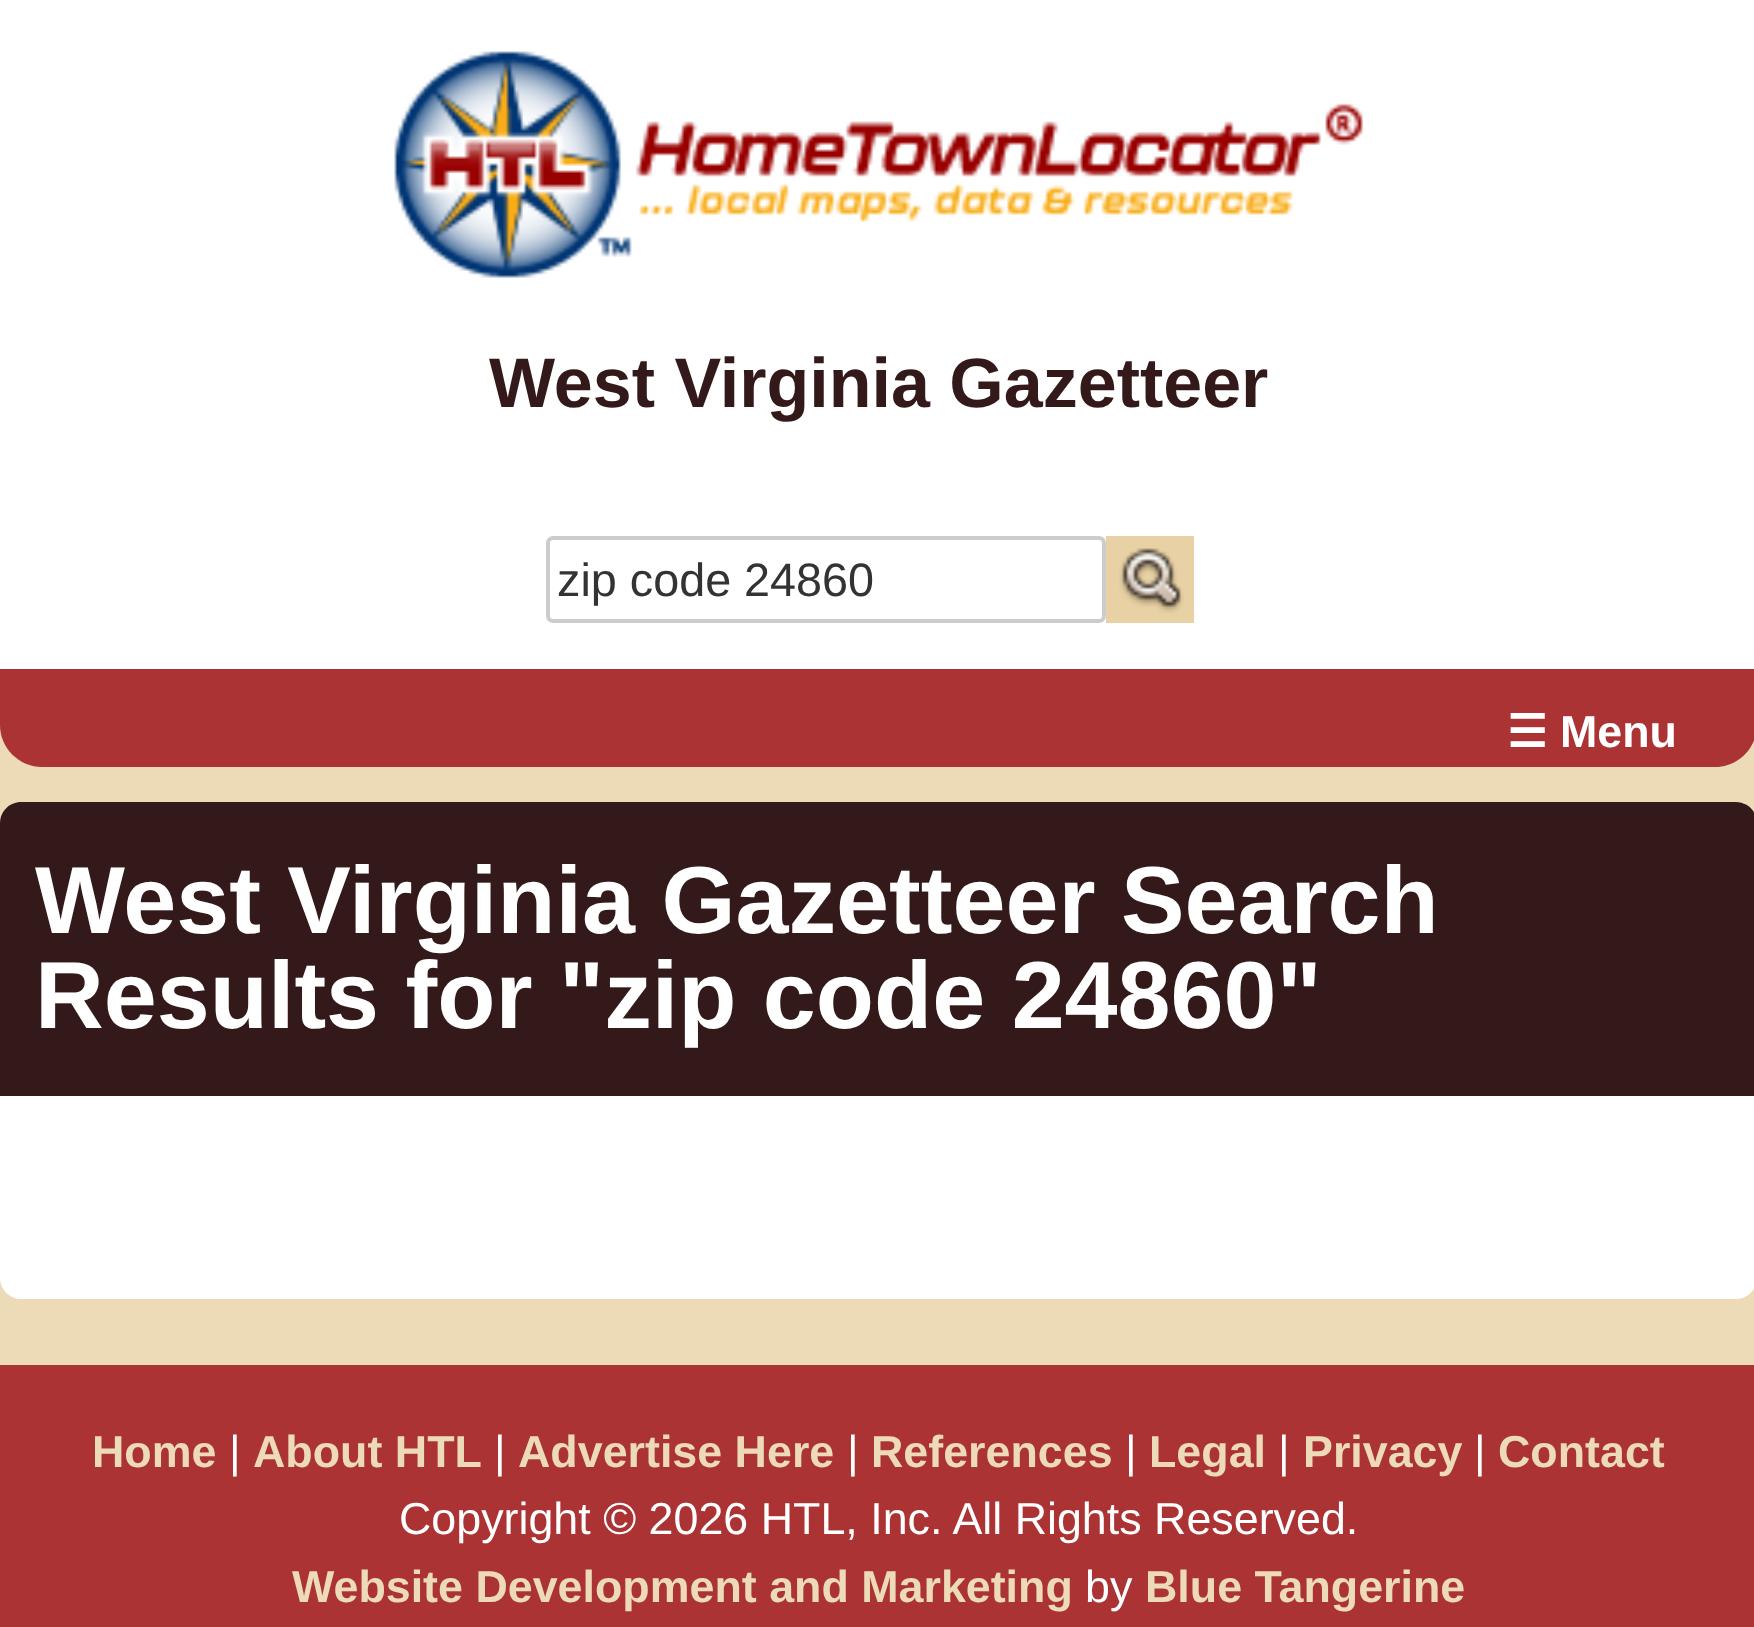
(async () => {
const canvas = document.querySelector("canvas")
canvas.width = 1754
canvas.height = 1627
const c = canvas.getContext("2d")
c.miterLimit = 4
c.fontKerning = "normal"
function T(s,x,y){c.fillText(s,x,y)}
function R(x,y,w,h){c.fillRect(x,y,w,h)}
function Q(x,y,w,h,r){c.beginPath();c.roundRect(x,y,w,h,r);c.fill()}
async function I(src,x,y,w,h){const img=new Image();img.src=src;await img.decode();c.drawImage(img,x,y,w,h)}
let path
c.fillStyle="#eddab6"
R(0,0,1754,1627)
c.fillStyle="#fff"
R(0,0,1754,669)
await I("1.png",394,51,969,227)
c.font="bold 70px Liberation Sans"
c.fillStyle="#331919"
T("West Virginia Gazetteer",489,407)
c.beginPath()
c.roundRect(548,538,556,83,5)
c.strokeStyle="#ccc"
c.lineWidth=4
c.stroke()
c.font="46.75px Liberation Sans"
c.fillStyle="#333"
T("zip code 24860",557,596)
c.fillStyle="#e8d1a4"
R(1106,536,88,87)
await I("2.png",1119,548,65,65)
c.fillStyle="#ab3334"
path = new Path2D("M0 669h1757v56c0 23-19 42-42 42h-1673c-23 0-42-19-42-42z")
c.fill(path)
c.font="bold 44.8px DejaVu Sans"
c.fillStyle="#fff"
T("☰",1507,747)
c.font="bold 44.8px Liberation Sans"
T("Menu",1560,747)
Q(0,802,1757,497,21)
c.fillStyle="#331919"
path = new Path2D("M21 802h1715c11.5 0 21 9.5 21 21v273h-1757v-273c0-11.5 9.5-21 21-21z")
c.fill(path)
c.font="bold 95.25px Liberation Sans"
c.fillStyle="#fff"
T("West Virginia Gazetteer",35,933)
T("Search",1121,933)
T("Results for \"zip code 24860\"",35,1028)
c.fillStyle="#ab3334"
R(0,1365,1754,262)
c.font="bold 44.8px Liberation Sans"
c.fillStyle="#eddab6"
T("Home",92,1467)
c.font="44.8px Liberation Sans"
c.fillStyle="#fff"
T("|",229,1467)
c.font="bold 44.8px Liberation Sans"
c.fillStyle="#eddab6"
T("About HTL",253,1467)
c.font="44.8px Liberation Sans"
c.fillStyle="#fff"
T("|",494,1467)
c.font="bold 44.8px Liberation Sans"
c.fillStyle="#eddab6"
T("Advertise Here",518,1467)
c.font="44.8px Liberation Sans"
c.fillStyle="#fff"
T("|",847,1467)
c.font="bold 44.8px Liberation Sans"
c.fillStyle="#eddab6"
T("References",871,1467)
c.font="44.8px Liberation Sans"
c.fillStyle="#fff"
T("|",1125,1467)
c.font="bold 44.8px Liberation Sans"
c.fillStyle="#eddab6"
T("Legal",1149,1467)
c.font="44.8px Liberation Sans"
c.fillStyle="#fff"
T("|",1278,1467)
c.font="bold 44.8px Liberation Sans"
c.fillStyle="#eddab6"
T("Privacy",1303,1467)
c.font="44.8px Liberation Sans"
c.fillStyle="#fff"
T("|",1474,1467)
c.font="bold 44.8px Liberation Sans"
c.fillStyle="#eddab6"
T("Contact",1498,1467)
c.font="44.8px Liberation Sans"
c.fillStyle="#fff"
T("Copyright © 2026 HTL, Inc. All Rights Reserved.",399,1534)
c.font="bold 44.8px Liberation Sans"
c.fillStyle="#eddab6"
T("Website Development and Marketing",292,1602)
c.font="44.8px Liberation Sans"
c.fillStyle="#fff"
T("by",1085,1602)
c.font="bold 44.8px Liberation Sans"
c.fillStyle="#eddab6"
T("Blue Tangerine",1145,1602)
})()
